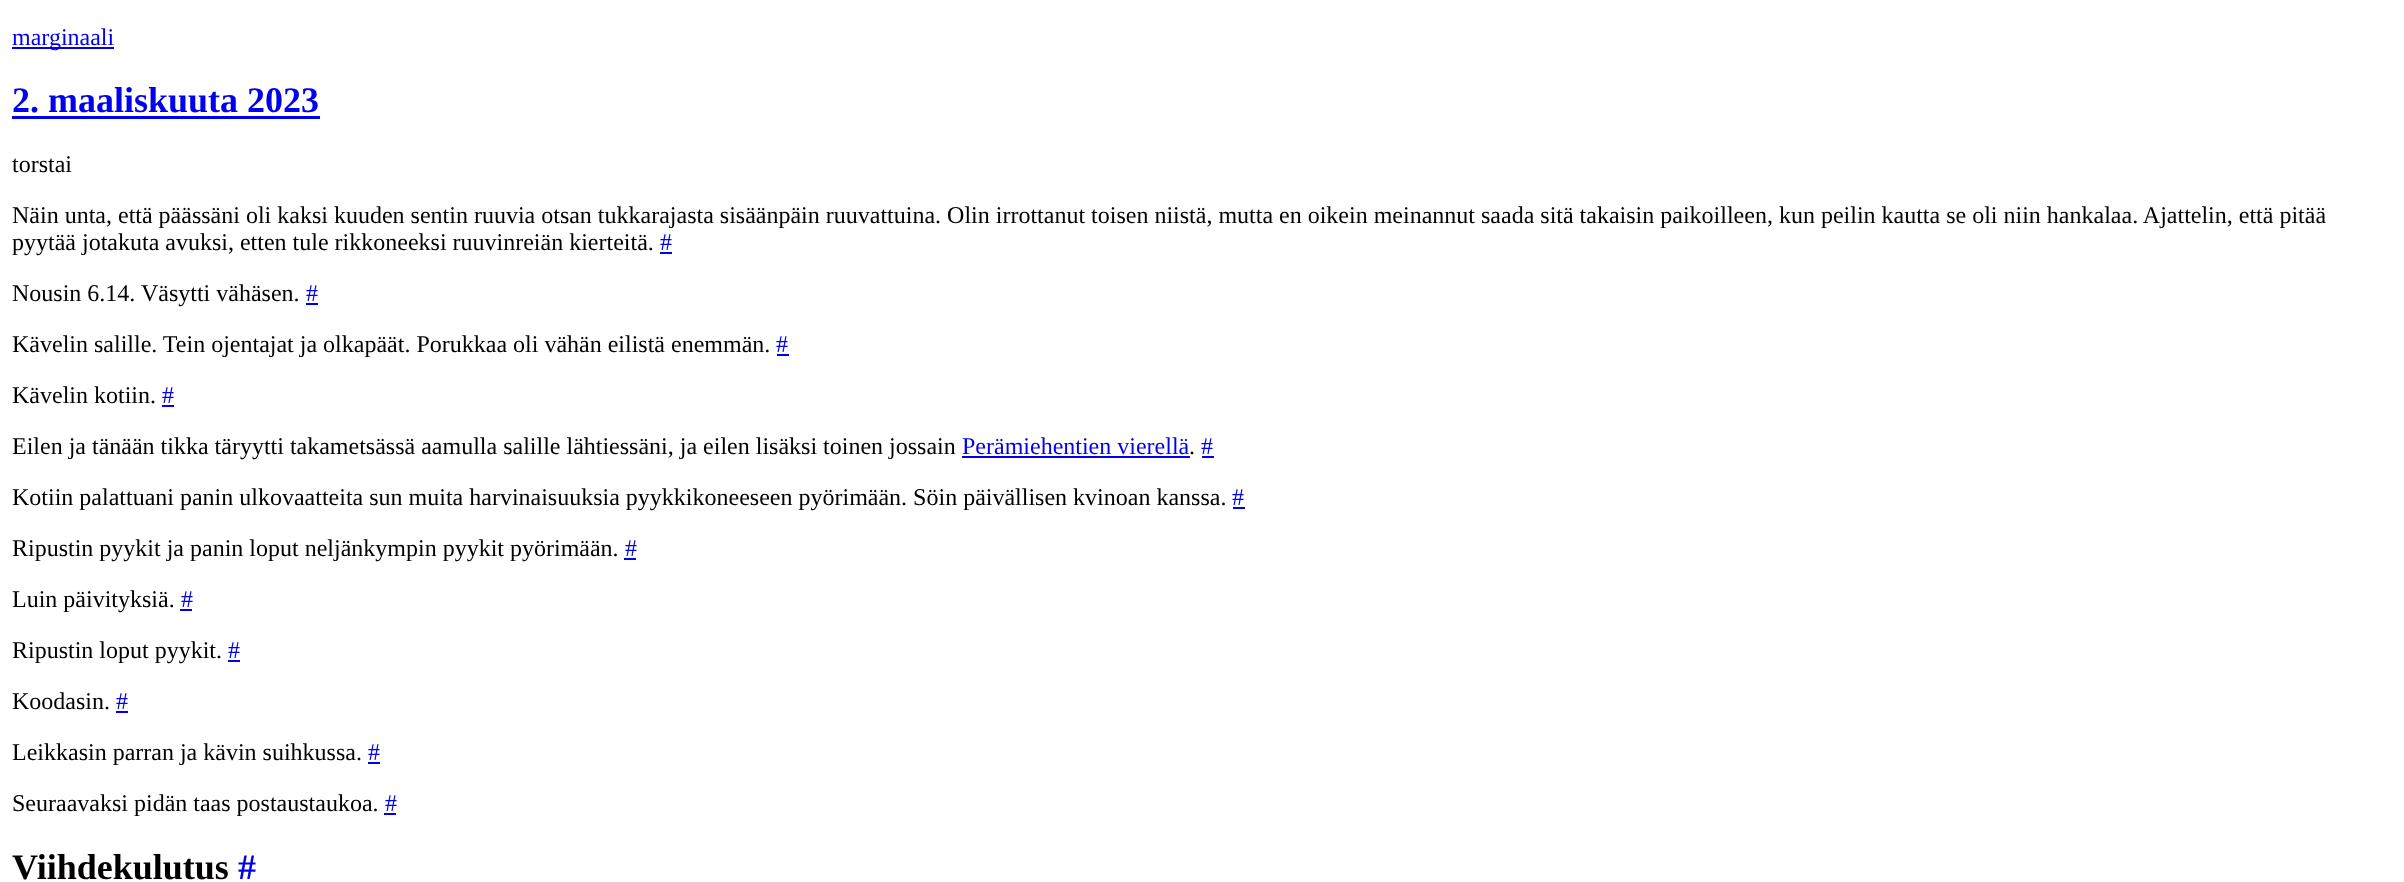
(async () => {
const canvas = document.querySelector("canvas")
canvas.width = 2404
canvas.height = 882
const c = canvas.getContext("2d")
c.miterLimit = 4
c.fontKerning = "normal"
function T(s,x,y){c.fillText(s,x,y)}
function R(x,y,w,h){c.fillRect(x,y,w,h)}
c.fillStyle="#fff"
R(0,0,2404,882)
c.fillStyle="#00e"
R(12,47,102,2)
c.font="24px Liberation Serif"
T("marginaali",12,45)
c.font="bold 36px Liberation Serif"
T("2. maaliskuuta 2023",12,112)
R(12,116,308,3)
c.font="24px Liberation Serif"
c.fillStyle="#000"
T("torstai",12,172)
T("Näin unta, että päässäni oli kaksi kuuden sentin ruuvia otsan tukkarajasta sisäänpäin ruuvattuina. Olin irrottanut toisen niistä, mutta en oikein meinannut saada sitä takaisin paikoilleen, kun peilin kautta se oli niin hankalaa. Ajattelin, että pitää",12,223)
T("pyytää jotakuta avuksi, etten tule rikkoneeksi ruuvinreiän kierteitä.",12,250)
c.fillStyle="#00e"
T("#",660,250)
R(660,252,12,2)
c.fillStyle="#000"
T("Nousin 6.14. Väsytti vähäsen.",12,301)
c.fillStyle="#00e"
T("#",306,301)
R(306,303,12,2)
c.fillStyle="#000"
T("Kävelin salille. Tein ojentajat ja olkapäät. Porukkaa oli vähän eilistä enemmän.",12,352)
c.fillStyle="#00e"
T("#",776,352)
R(777,354,12,2)
c.fillStyle="#000"
T("Kävelin kotiin.",12,403)
c.fillStyle="#00e"
T("#",162,403)
R(162,405,12,2)
c.fillStyle="#000"
T("Eilen ja tänään tikka täryytti takametsässä aamulla salille lähtiessäni, ja eilen lisäksi toinen jossain",12,454)
c.fillStyle="#00e"
T("Perämiehentien vierellä",962,454)
R(962,456,228,2)
c.fillStyle="#000"
T(".",1189,454)
c.fillStyle="#00e"
T("#",1201,454)
R(1202,456,12,2)
c.fillStyle="#000"
T("Kotiin palattuani panin ulkovaatteita sun muita harvinaisuuksia pyykkikoneeseen pyörimään. Söin päivällisen kvinoan kanssa.",12,505)
c.fillStyle="#00e"
T("#",1232,505)
R(1233,507,12,2)
c.fillStyle="#000"
T("Ripustin pyykit ja panin loput neljänkympin pyykit pyörimään.",12,556)
c.fillStyle="#00e"
T("#",625,556)
R(624,558,12,2)
c.fillStyle="#000"
T("Luin päivityksiä.",12,607)
c.fillStyle="#00e"
T("#",181,607)
R(180,609,12,2)
c.fillStyle="#000"
T("Ripustin loput pyykit.",12,658)
c.fillStyle="#00e"
T("#",228,658)
R(228,660,12,2)
c.fillStyle="#000"
T("Koodasin.",12,709)
c.fillStyle="#00e"
T("#",116,709)
R(116,711,12,2)
c.fillStyle="#000"
T("Leikkasin parran ja kävin suihkussa.",12,760)
c.fillStyle="#00e"
T("#",368,760)
R(368,762,12,2)
c.fillStyle="#000"
T("Seuraavaksi pidän taas postaustaukoa.",12,811)
c.fillStyle="#00e"
T("#",385,811)
R(384,813,12,2)
c.font="bold 36px Liberation Serif"
c.fillStyle="#000"
T("Viihdekulutus",12,879)
c.fillStyle="#00e"
T("#",238,879)
})()
